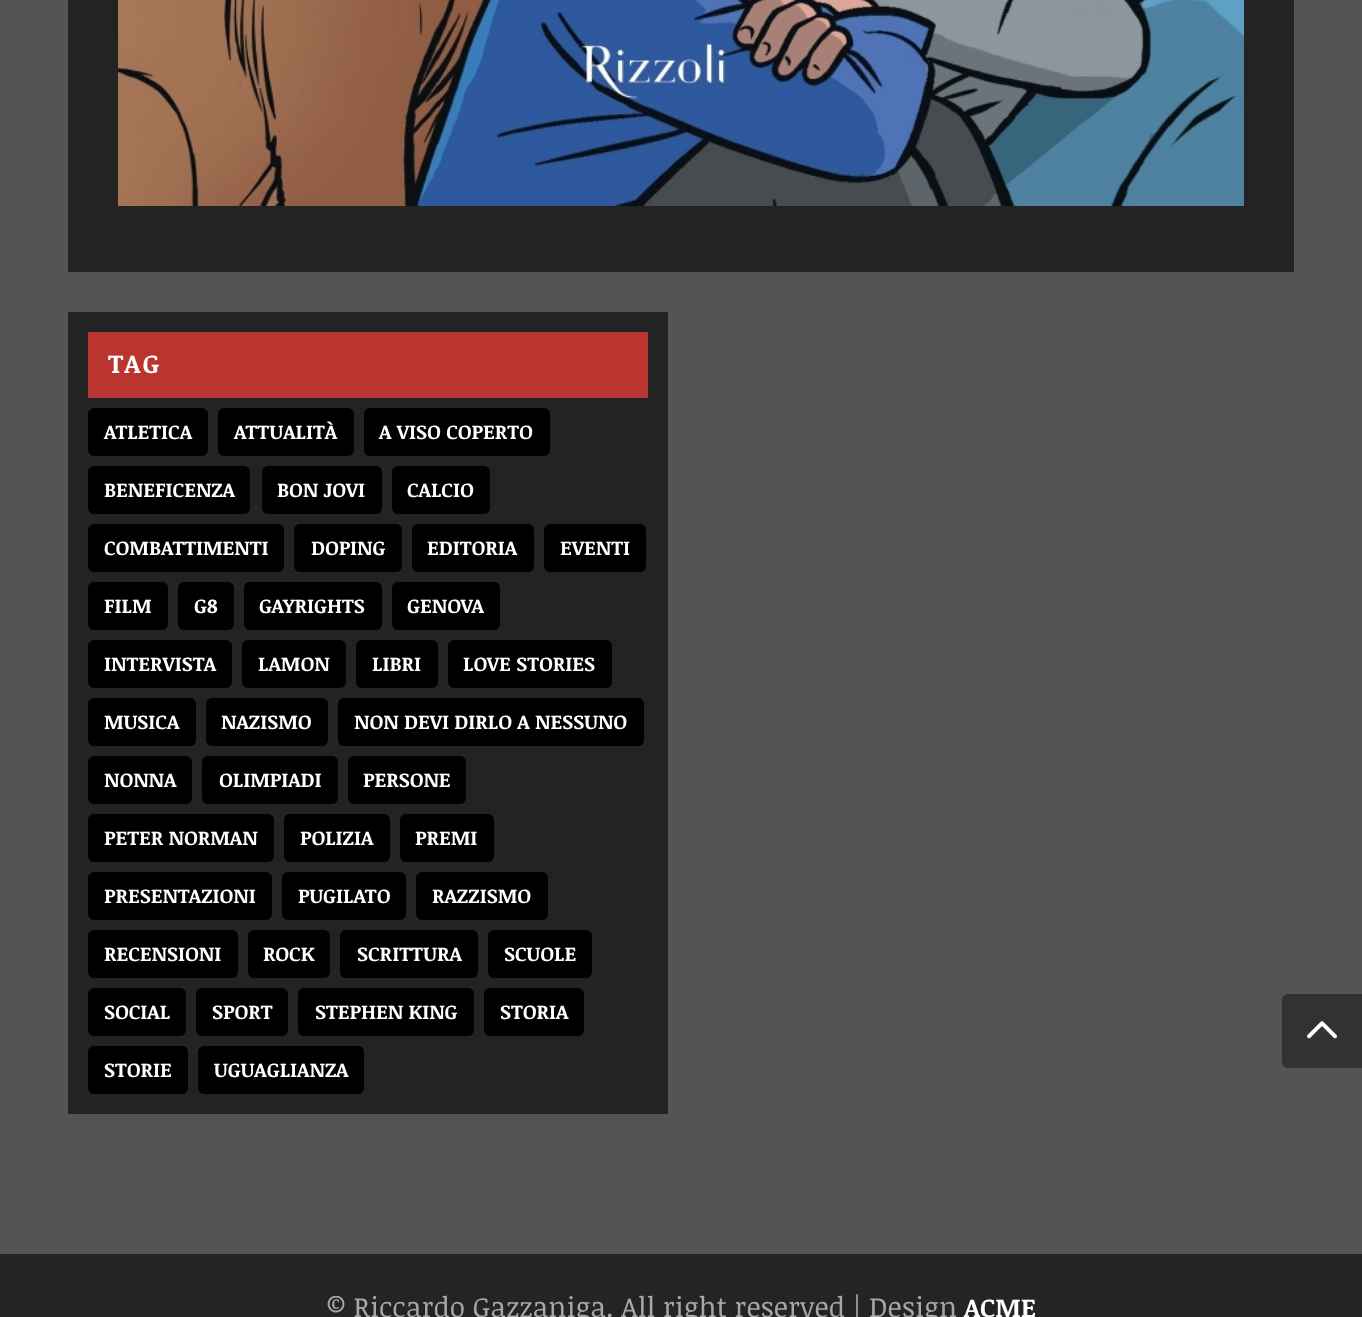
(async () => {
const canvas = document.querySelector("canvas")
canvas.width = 1362
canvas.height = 1317
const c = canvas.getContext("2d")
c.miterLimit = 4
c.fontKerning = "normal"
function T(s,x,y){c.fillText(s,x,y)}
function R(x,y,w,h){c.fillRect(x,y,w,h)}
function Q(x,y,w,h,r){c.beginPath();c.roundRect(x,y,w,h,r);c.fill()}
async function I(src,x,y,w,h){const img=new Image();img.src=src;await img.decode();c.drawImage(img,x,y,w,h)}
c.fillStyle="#545454"
R(0,0,1362,1317)
c.fillStyle="#232323"
R(68,0,1226,272)
await I("1.png",118,0,1126,206)
R(68,312,600,802)
c.fillStyle="#ba3430"
R(88,332,560,66)
c.letterSpacing="2px"
c.font="bold 26px Noticia Text"
c.fillStyle="#fff"
T("TAG",108,373)
c.fillStyle="#000"
Q(88,408,120,48,6)
c.letterSpacing="0px"
c.font="bold 20px Noticia Text"
c.fillStyle="#fff"
T("ATLETICA",104,439)
c.fillStyle="#000"
Q(218,408,136,48,6)
c.fillStyle="#fff"
T("ATTUALITÀ",234,439)
c.fillStyle="#000"
Q(364,408,186,48,6)
c.fillStyle="#fff"
T("A VISO COPERTO",379,439)
c.fillStyle="#000"
Q(88,466,162,48,6)
c.fillStyle="#fff"
T("BENEFICENZA",104,497)
c.fillStyle="#000"
Q(262,466,120,48,6)
c.fillStyle="#fff"
T("BON JOVI",277,497)
c.fillStyle="#000"
Q(392,466,98,48,6)
c.fillStyle="#fff"
T("CALCIO",407,497)
c.fillStyle="#000"
Q(88,524,196,48,6)
c.fillStyle="#fff"
T("COMBATTIMENTI",104,555)
c.fillStyle="#000"
Q(294,524,108,48,6)
c.fillStyle="#fff"
T("DOPING",311,555)
c.fillStyle="#000"
Q(412,524,122,48,6)
c.fillStyle="#fff"
T("EDITORIA",427,555)
c.fillStyle="#000"
Q(544,524,102,48,6)
c.fillStyle="#fff"
T("EVENTI",560,555)
c.fillStyle="#000"
Q(88,582,80,48,6)
c.fillStyle="#fff"
T("FILM",104,613)
c.fillStyle="#000"
Q(178,582,56,48,6)
c.fillStyle="#fff"
T("G8",194,613)
c.fillStyle="#000"
Q(244,582,138,48,6)
c.fillStyle="#fff"
T("GAYRIGHTS",259,613)
c.fillStyle="#000"
Q(392,582,108,48,6)
c.fillStyle="#fff"
T("GENOVA",407,613)
c.fillStyle="#000"
Q(88,640,144,48,6)
c.fillStyle="#fff"
T("INTERVISTA",104,671)
c.fillStyle="#000"
Q(242,640,104,48,6)
c.fillStyle="#fff"
T("LAMON",258,671)
c.fillStyle="#000"
Q(356,640,82,48,6)
c.fillStyle="#fff"
T("LIBRI",372,671)
c.fillStyle="#000"
Q(448,640,164,48,6)
c.fillStyle="#fff"
T("LOVE STORIES",463,671)
c.fillStyle="#000"
Q(88,698,108,48,6)
c.fillStyle="#fff"
T("MUSICA",104,729)
c.fillStyle="#000"
Q(206,698,122,48,6)
c.fillStyle="#fff"
T("NAZISMO",221,729)
c.fillStyle="#000"
Q(338,698,306,48,6)
c.fillStyle="#fff"
T("NON DEVI DIRLO A NESSUNO",354,729)
c.fillStyle="#000"
Q(88,756,104,48,6)
c.fillStyle="#fff"
T("NONNA",104,787)
c.fillStyle="#000"
Q(202,756,136,48,6)
c.fillStyle="#fff"
T("OLIMPIADI",219,787)
c.fillStyle="#000"
Q(348,756,118,48,6)
c.fillStyle="#fff"
T("PERSONE",363,787)
c.fillStyle="#000"
Q(88,814,186,48,6)
c.fillStyle="#fff"
T("PETER NORMAN",104,845)
c.fillStyle="#000"
Q(284,814,106,48,6)
c.fillStyle="#fff"
T("POLIZIA",300,845)
c.fillStyle="#000"
Q(400,814,94,48,6)
c.fillStyle="#fff"
T("PREMI",415,845)
c.fillStyle="#000"
Q(88,872,184,48,6)
c.fillStyle="#fff"
T("PRESENTAZIONI",104,903)
c.fillStyle="#000"
Q(282,872,124,48,6)
c.fillStyle="#fff"
T("PUGILATO",298,903)
c.fillStyle="#000"
Q(416,872,132,48,6)
c.fillStyle="#fff"
T("RAZZISMO",432,903)
c.fillStyle="#000"
Q(88,930,150,48,6)
c.fillStyle="#fff"
T("RECENSIONI",104,961)
c.fillStyle="#000"
Q(248,930,82,48,6)
c.fillStyle="#fff"
T("ROCK",263,961)
c.fillStyle="#000"
Q(340,930,138,48,6)
c.fillStyle="#fff"
T("SCRITTURA",357,961)
c.fillStyle="#000"
Q(488,930,104,48,6)
c.fillStyle="#fff"
T("SCUOLE",504,961)
c.fillStyle="#000"
Q(88,988,98,48,6)
c.fillStyle="#fff"
T("SOCIAL",104,1019)
c.fillStyle="#000"
Q(196,988,92,48,6)
c.fillStyle="#fff"
T("SPORT",212,1019)
c.fillStyle="#000"
Q(298,988,176,48,6)
c.fillStyle="#fff"
T("STEPHEN KING",315,1019)
c.fillStyle="#000"
Q(484,988,100,48,6)
c.fillStyle="#fff"
T("STORIA",500,1019)
c.fillStyle="#000"
Q(88,1046,100,48,6)
c.fillStyle="#fff"
T("STORIE",104,1077)
c.fillStyle="#000"
Q(198,1046,166,48,6)
c.fillStyle="#fff"
T("UGUAGLIANZA",214,1077)
c.fillStyle="#242424"
R(0,1254,1362,63)
c.font="28px Noticia Text"
c.fillStyle="#a7a7a7"
T("© Riccardo Gazzaniga. All right reserved | Design",326,1317)
c.font="bold 26px Noticia Text"
c.fillStyle="#fff"
T("ACME",964,1317)
c.fillStyle="#323232"
c.beginPath()
c.roundRect(1282,994,80,74,[6,0,0,6])
c.fill()
await I("2.png",1307,1021,30,18)
})()
